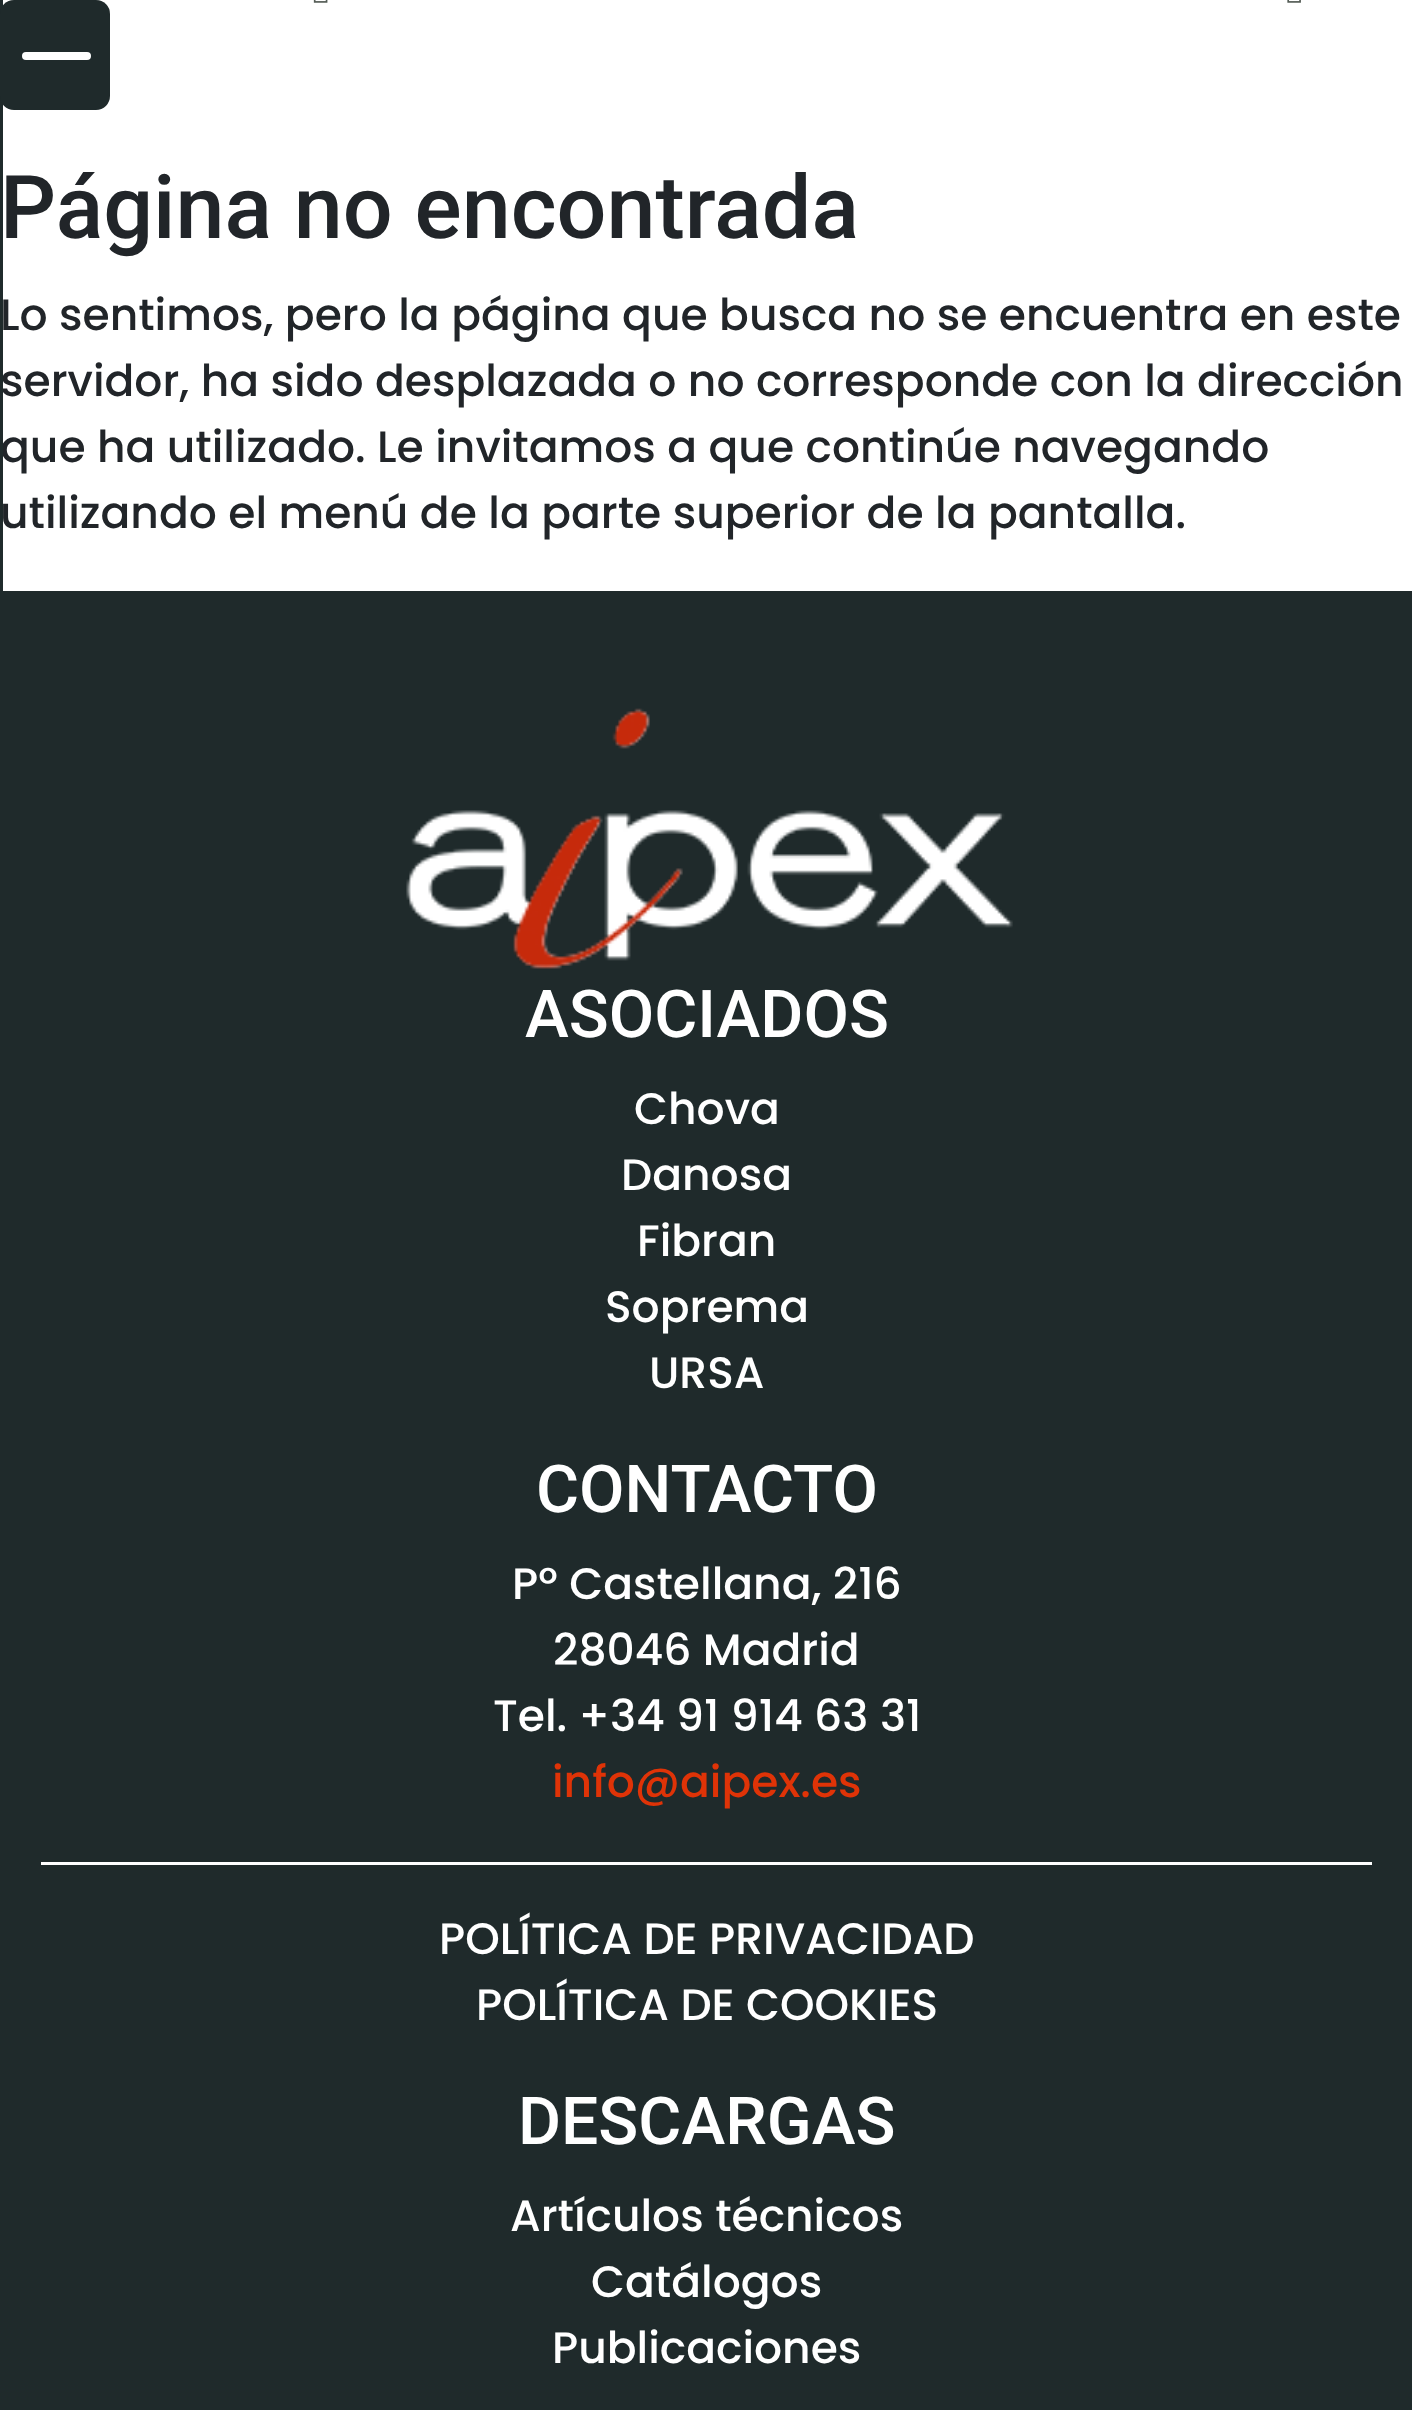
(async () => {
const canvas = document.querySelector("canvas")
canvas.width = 1412
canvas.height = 2410
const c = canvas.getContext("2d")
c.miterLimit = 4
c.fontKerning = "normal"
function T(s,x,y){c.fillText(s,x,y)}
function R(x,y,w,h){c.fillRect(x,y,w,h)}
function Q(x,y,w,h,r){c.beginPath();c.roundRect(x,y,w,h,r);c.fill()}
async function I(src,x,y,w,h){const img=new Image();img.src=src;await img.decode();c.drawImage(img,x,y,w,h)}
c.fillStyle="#fff"
R(0,0,1412,2410)
await I("1.png",313,0,15,3)
await I("2.png",1287,0,14,3)
c.font="500 88px Roboto"
c.fillStyle="#212529"
T("Página no encontrada",0,238)
c.font="500 44px Poppins"
T("Lo sentimos, pero la página que busca no se encuentra en este",0,330)
T("servidor, ha sido desplazada o no corresponde con la dirección",0,396)
T("que ha utilizado. Le invitamos a que continúe navegando",0,462)
T("utilizando el menú de la parte superior de la pantalla.",0,528)
c.fillStyle="#1f2a2b"
R(3,591,1409,1819)
R(0,0,3,2410)
Q(0,0,110,110,14)
c.fillStyle="#fff"
Q(22,52,69,8,4)
await I("3.png",406,708,607,261)
c.font="500 66px Roboto"
T("ASOCIADOS",525,1037)
c.font="500 44px Poppins"
T("Chova",634,1124)
T("Danosa",621,1190)
T("Fibran",637,1256)
T("Soprema",605,1322)
T("URSA",649,1388)
c.font="500 66px Roboto"
T("CONTACTO",536,1512)
c.font="500 44px Poppins"
T("Pº Castellana, 216",512,1599)
T("28046 Madrid",553,1665)
T("Tel. +34 91 914 63 31",493,1731)
c.fillStyle="#df3307"
T("info@aipex.es",552,1797)
c.fillStyle="#fff"
R(41,1862,1331,3)
T("POLÍTICA DE PRIVACIDAD",439,1954)
T("POLÍTICA DE COOKIES",476,2020)
c.font="500 66px Roboto"
T("DESCARGAS",518,2144)
c.font="500 44px Poppins"
T("Artículos técnicos",510,2231)
T("Catálogos",591,2297)
T("Publicaciones",552,2363)
})()
